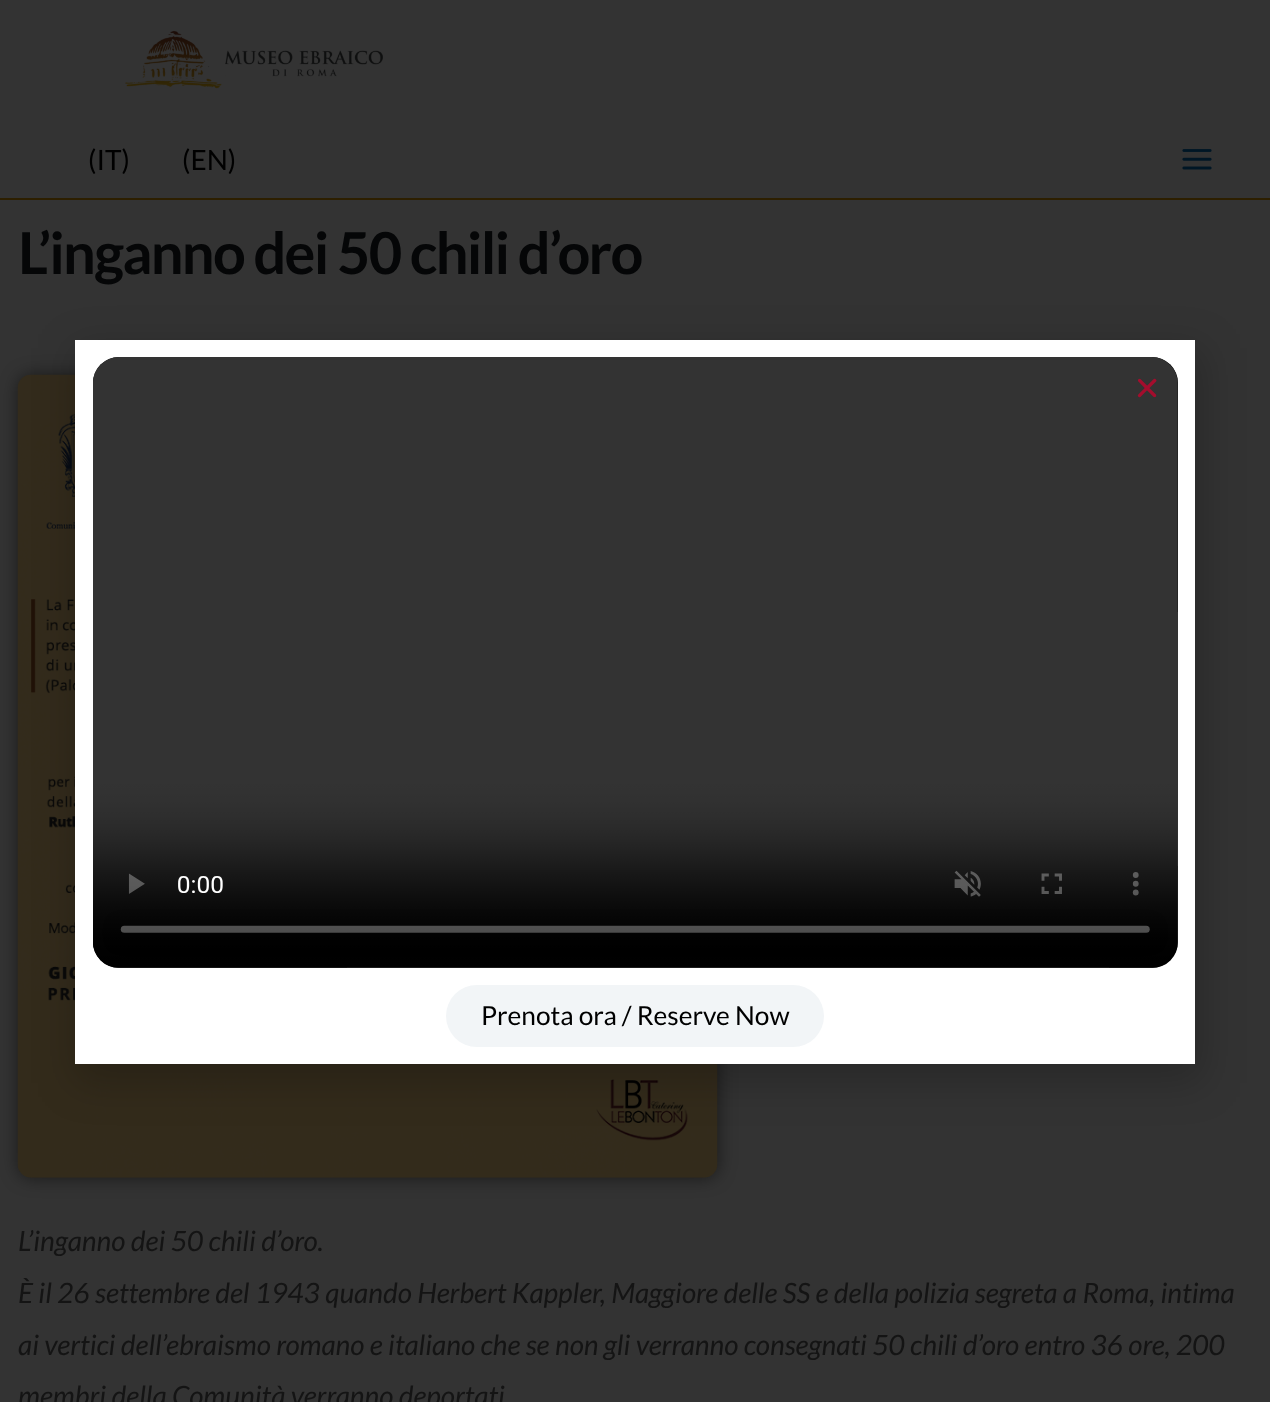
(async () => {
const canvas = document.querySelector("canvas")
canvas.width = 1270
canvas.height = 1402
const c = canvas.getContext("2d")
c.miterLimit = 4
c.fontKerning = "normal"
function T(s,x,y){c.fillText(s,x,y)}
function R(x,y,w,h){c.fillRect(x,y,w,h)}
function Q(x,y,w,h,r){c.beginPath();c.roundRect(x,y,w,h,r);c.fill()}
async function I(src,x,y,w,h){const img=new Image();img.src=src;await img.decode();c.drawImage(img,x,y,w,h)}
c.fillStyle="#333"
R(0,0,1270,1402)
await I("1.png",125,30,258,59)
c.fillStyle="#2d1f00"
R(0,198,1270,2)
c.font="28px Lato"
c.fillStyle="#000"
T("(IT)",88,170)
T("(EN)",182,170)
await I("2.png",1182,149,30,21)
c.letterSpacing="-1.75px"
c.font="bold 57.75px Lato"
c.fillStyle="#050607"
T("L’inganno dei 50 chili d’oro",18,274)
c.fillStyle="#00000080"
c.filter="blur(9px)"
c.beginPath()
c.roundRect(18,375,700,803,14)
c.fill()
c.filter="none"
await I("3.png",17,374,701,804)
c.letterSpacing="0px"
c.font="italic 28px Lato"
c.fillStyle="#141414"
T("L’inganno dei 50 chili d’oro.",18,1251)
T("È il 26 settembre del 1943 quando Herbert Kappler, Maggiore delle SS e della polizia segreta a Roma, intima",18,1303)
T("ai vertici dell’ebraismo romano e italiano che se non gli verranno consegnati 50 chili d’oro entro 36 ore, 200",18,1355)
T("membri della Comunità verranno deportati",18,1406)
c.fillStyle="#00000033"
c.filter="blur(20px)"
c.beginPath()
c.rect(74,348,1130,735)
c.fill()
c.filter="none"
c.fillStyle="#fff"
R(75,340,1120,724)
c.fillStyle="#000"
Q(93,357,1085,611,26)
await I("5.png",93,357,1085,611)
await I("4.png",1137,378,20,20)
c.fillStyle="#f2f5f7"
Q(446,985,378,62,31)
c.font="26.25px Lato"
c.fillStyle="#000"
T("Prenota ora / Reserve Now",481,1025)
})()
